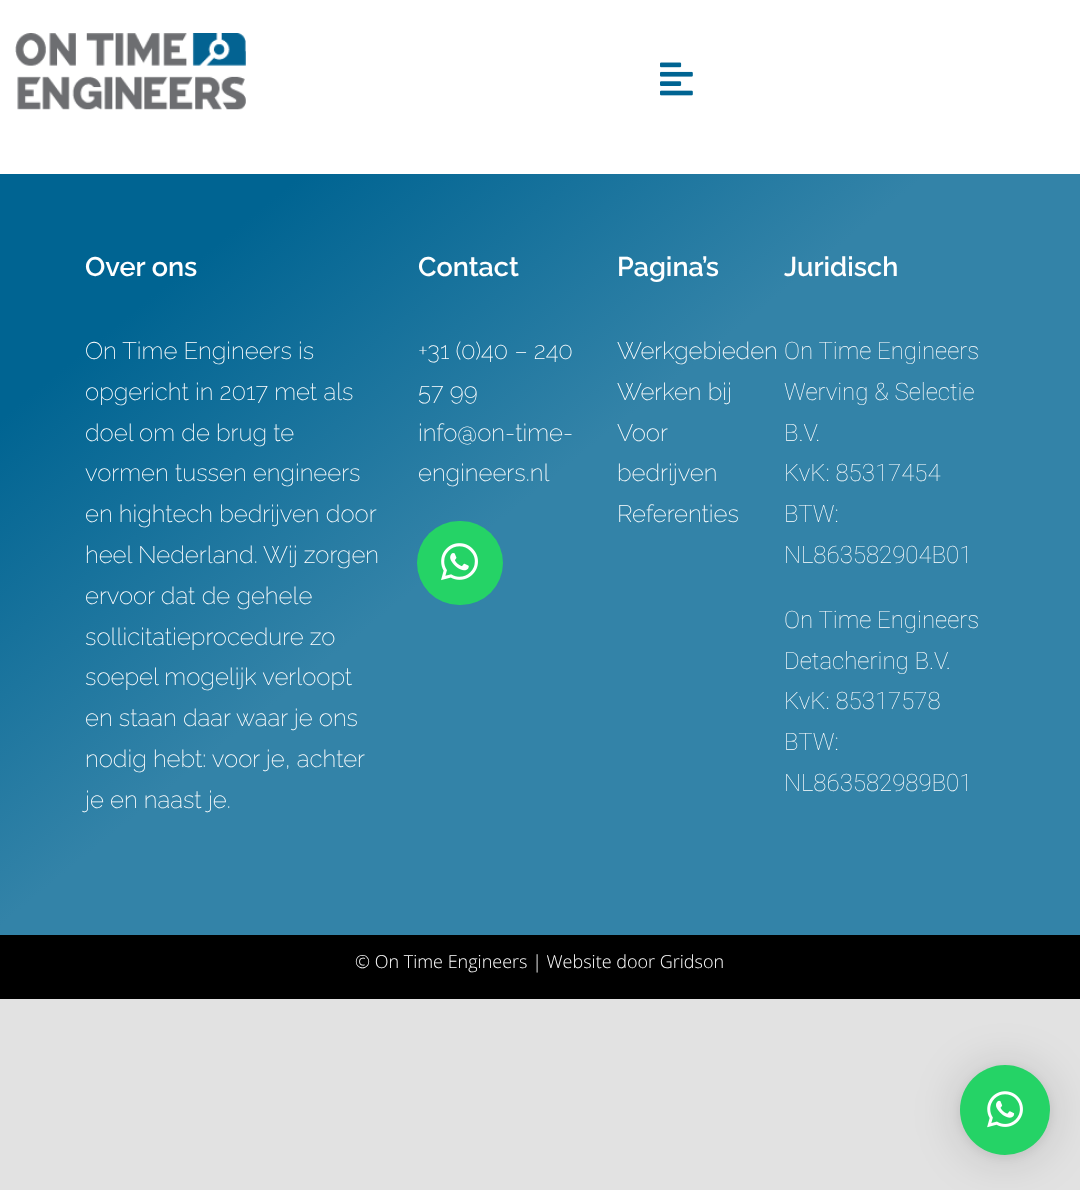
(async () => {
const canvas = document.querySelector("canvas")
canvas.width = 1080
canvas.height = 1190
const c = canvas.getContext("2d")
c.miterLimit = 4
c.fontKerning = "normal"
function T(s,x,y){c.fillText(s,x,y)}
function R(x,y,w,h){c.fillRect(x,y,w,h)}
function Q(x,y,w,h,r){c.beginPath();c.roundRect(x,y,w,h,r);c.fill()}
async function I(src,x,y,w,h){const img=new Image();img.src=src;await img.decode();c.drawImage(img,x,y,w,h)}
let gradient
c.fillStyle="#e2e2e2"
R(0,0,1080,1190)
c.fillStyle="#fff"
R(0,0,1080,174)
await I("1.png",15,33,231,77)
await I("2.png",660,62,33,34)
gradient = c.createLinearGradient(140,60,940,1048)
gradient.addColorStop(.15,"#006492")
gradient.addColorStop(.46,"#3383a8")
c.fillStyle = gradient
R(0,174,1080,761)
c.font="600 27px Raleway"
c.fillStyle="#fff"
T("Over ons",85,276)
c.font="200 24px Raleway"
T("On Time Engineers is",85,359)
T("opgericht in 2017 met als",85,400)
T("doel om de brug te",85,441)
T("vormen tussen engineers",85,481)
T("en hightech bedrijven door",85,522)
T("heel Nederland. Wij zorgen",85,563)
T("ervoor dat de gehele",85,604)
T("sollicitatieprocedure zo",85,645)
T("soepel mogelijk verloopt",85,685)
T("en staan daar waar je ons",85,726)
T("nodig hebt: voor je, achter",85,767)
T("je en naast je.",85,808)
c.font="600 27px Raleway"
T("Contact",418,276)
c.font="200 24px Raleway"
T("+31 (0)40 – 240",418,359)
T("57 99",418,400)
T("info@on-time-",418,441)
T("engineers.nl",418,481)
c.fillStyle="#25d366"
Q(417,521,86,84,42)
await I("3.png",441,543,37,38)
c.font="600 27px Raleway"
c.fillStyle="#fff"
T("Pagina’s",617,276)
c.font="200 24px Raleway"
T("Werkgebieden",617,359)
T("Werken bij",617,400)
T("Voor",617,441)
T("bedrijven",617,481)
T("Referenties",617,522)
c.font="600 27px Raleway"
T("Juridisch",784,276)
c.font="100 24px Roboto"
T("On Time Engineers",784,359)
T("Werving & Selectie",784,400)
T("B.V.",784,441)
T("KvK: 85317454",784,481)
T("BTW:",784,522)
T("NL863582904B01",784,563)
T("On Time Engineers",784,628)
T("Detachering B.V.",784,669)
T("KvK: 85317578",784,709)
T("BTW:",784,750)
T("NL863582989B01",784,791)
c.fillStyle="#000"
R(0,935,1080,64)
c.font="300 18px Open Sans"
c.fillStyle="#fff"
T("© On Time Engineers | Website door Gridson",355,968)
c.fillStyle="#00000029"
c.filter="blur(24px)"
c.beginPath()
c.roundRect(960,1068,90,90,45)
c.fill()
c.filter="none"
c.fillStyle="#0000000f"
c.filter="blur(4.5px)"
c.beginPath()
c.roundRect(960,1067,90,90,45)
c.fill()
c.filter="none"
c.fillStyle="#25d366"
c.beginPath()
c.arc(1005,1110,45,0,7)
c.fill()
await I("4.png",987,1091,36,37)
})()
